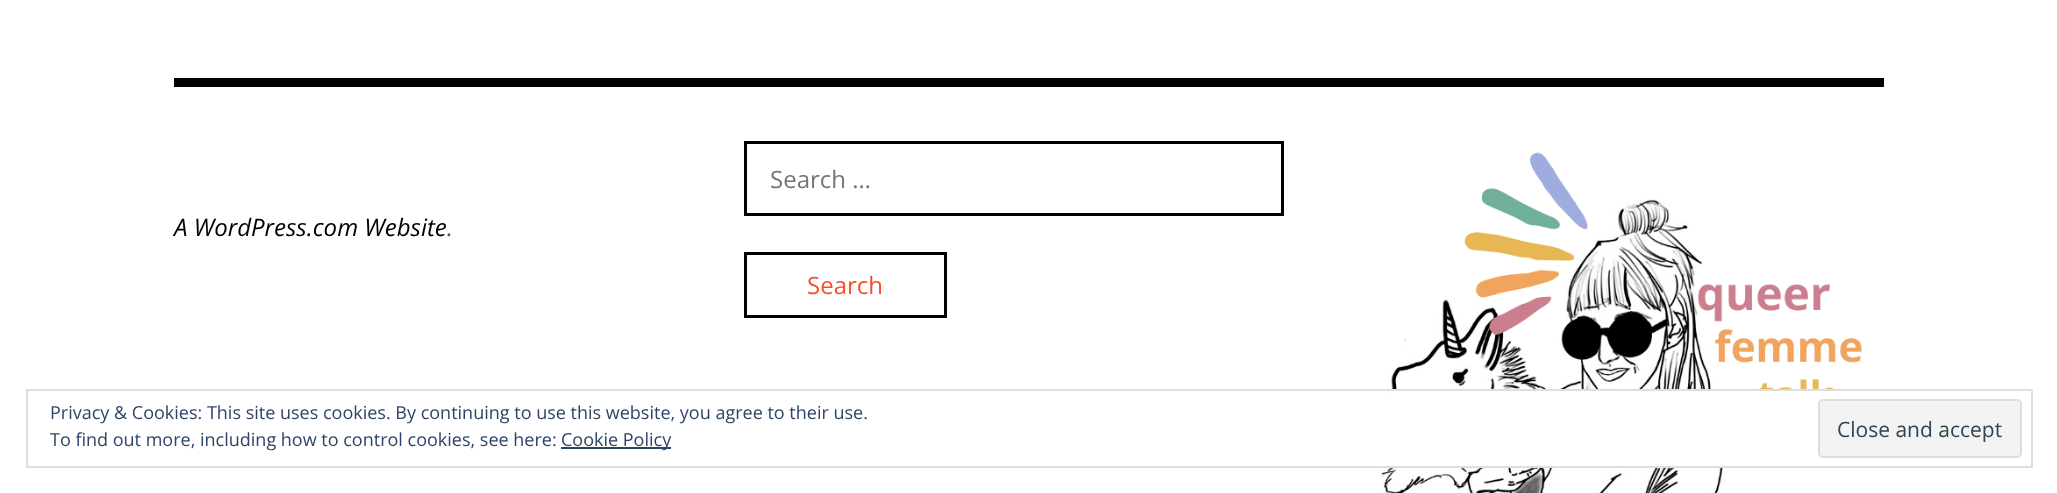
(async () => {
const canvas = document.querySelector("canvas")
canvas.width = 2057
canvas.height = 493
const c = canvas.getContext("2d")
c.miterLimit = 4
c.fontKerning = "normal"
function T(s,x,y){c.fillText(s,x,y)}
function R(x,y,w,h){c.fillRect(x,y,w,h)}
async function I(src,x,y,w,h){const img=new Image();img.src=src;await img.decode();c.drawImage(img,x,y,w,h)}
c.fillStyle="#fff"
R(0,0,2057,493)
c.fillStyle="#000"
R(174,78,1710,9)
c.font="italic 24px Open Sans"
T("A WordPress.com Website",174,236)
c.fillStyle="#555"
T(".",447,236)
c.strokeStyle="#000"
c.lineWidth=3
c.strokeRect(745.5,142.5,537,72)
c.font="24px Open Sans"
c.fillStyle="#757575"
T("Search …",770,188)
c.strokeRect(745.5,253.5,200,63)
c.fillStyle="#f35029"
T("Search",807,294)
await I("1.png",1381,152,481,341)
c.fillStyle="#fff"
R(1391,391,444,75)
c.strokeStyle="#dedede"
c.lineWidth=2
c.strokeRect(27,390,2005,77)
c.font="18px Open Sans"
c.fillStyle="#2e4467"
T("Privacy & Cookies: This site uses cookies. By continuing to use this website, you agree to their use.",50,419)
T("To find out more, including how to control cookies, see here:",50,446)
R(561,447,110,2)
T("Cookie Policy",561,446)
c.fillStyle="#f3f3f3"
c.beginPath()
c.roundRect(1819,400,202,57,4)
c.fill()
c.stroke()
c.font="21px Open Sans"
c.fillStyle="#2e4453"
T("Close and accept",1837,437)
})()
